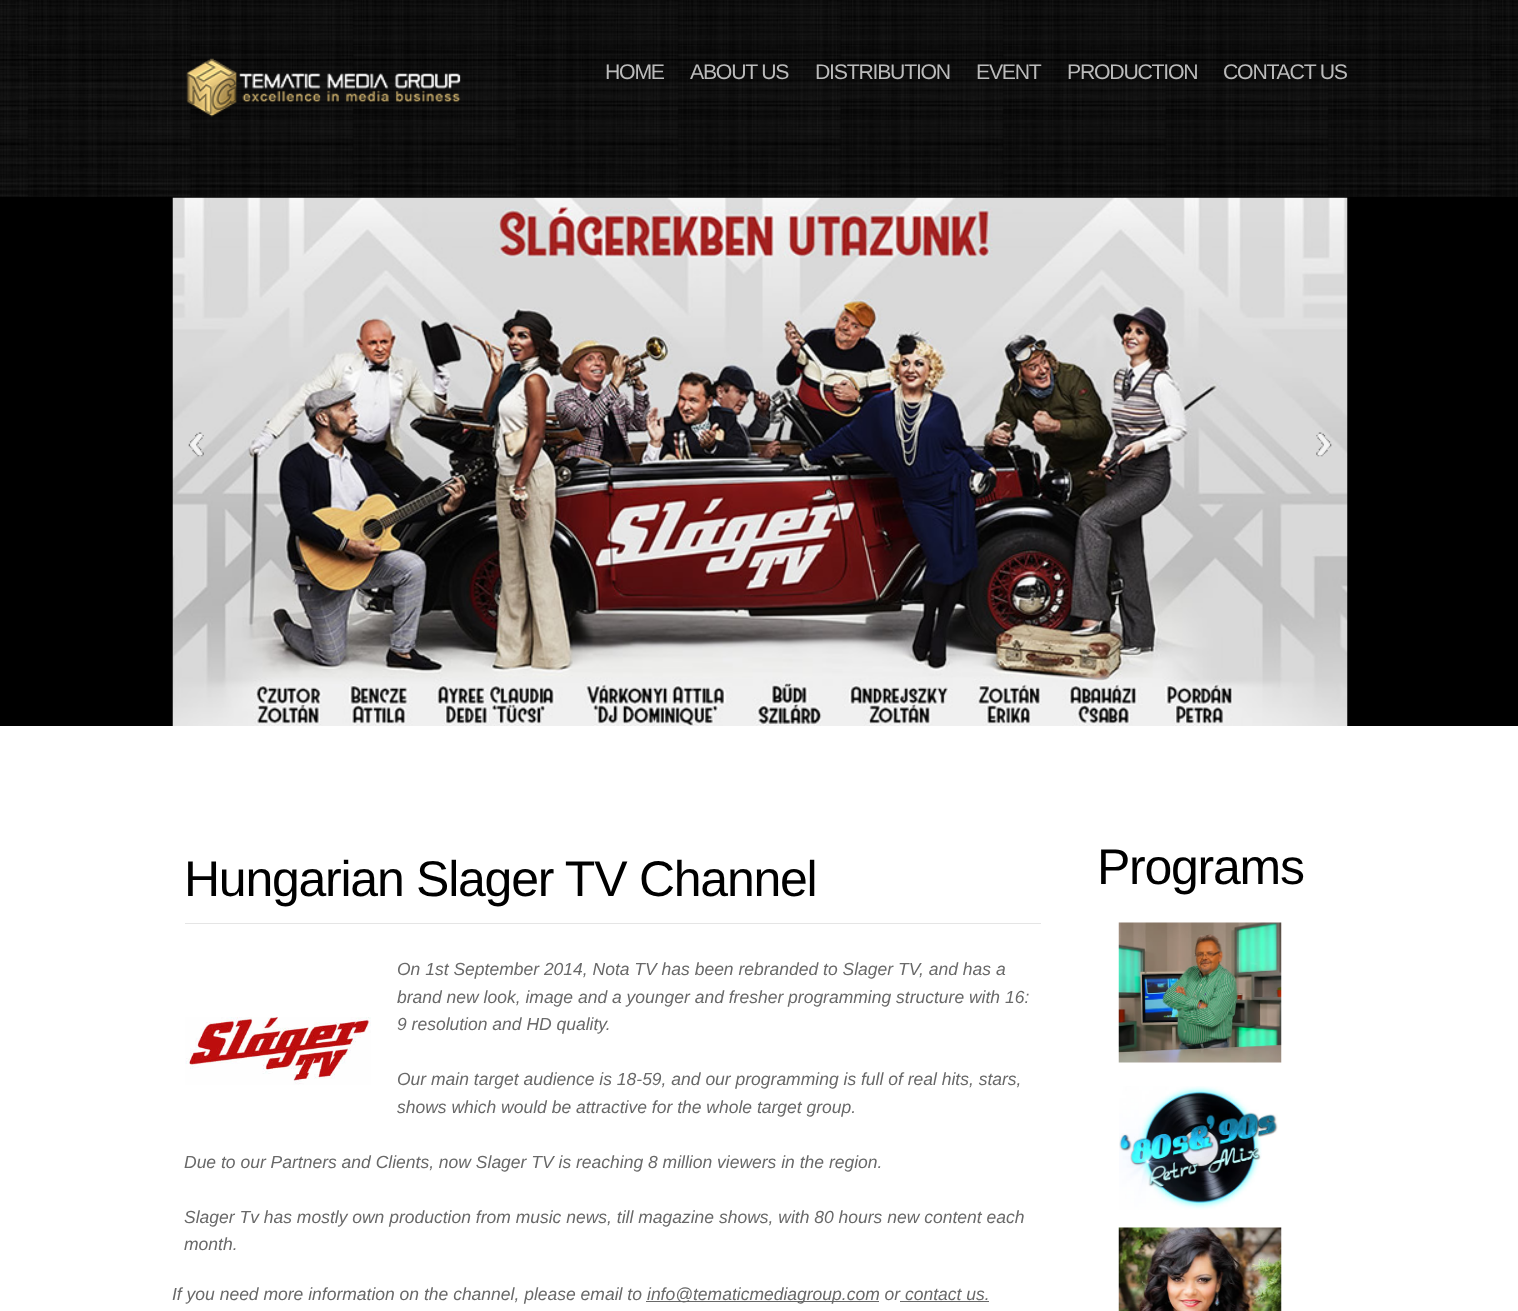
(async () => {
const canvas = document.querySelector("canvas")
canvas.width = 1518
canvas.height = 1311
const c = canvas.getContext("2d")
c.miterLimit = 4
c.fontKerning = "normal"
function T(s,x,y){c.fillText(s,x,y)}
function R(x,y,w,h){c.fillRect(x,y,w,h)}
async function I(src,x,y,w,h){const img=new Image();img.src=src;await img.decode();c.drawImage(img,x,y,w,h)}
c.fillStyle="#fff"
R(0,0,1518,1311)
await I("1.png",0,0,1518,197)
c.fillStyle="#000"
R(0,197,1518,529)
await I("2.png",186,58,275,59)
c.letterSpacing="-1.25px"
c.font="21.25px Liberation Sans"
c.fillStyle="#bbb"
T("HOME",605,79)
T("ABOUT US",690,79)
T("DISTRIBUTION",815,79)
T("EVENT",976,79)
T("PRODUCTION",1067,79)
T("CONTACT US",1223,79)
await I("3.png",172,197,1176,529)
await I("4.png",188,432,16,25)
await I("5.png",1316,432,16,25)
c.fillStyle="#e5e5e5"
R(185,923,856,1)
c.font="50px Liberation Sans"
c.fillStyle="#000"
T("Hungarian Slager TV Channel",184,896)
c.letterSpacing="0px"
c.font="italic 17.5px Liberation Sans"
c.fillStyle="#696969"
T("On 1st September 2014, Nota TV has been rebranded to Slager TV, and has a",397,975)
T("brand new look, image and a younger and fresher programming structure with 16:",397,1003)
T("9 resolution and HD quality.",397,1030)
T("Our main target audience is 18-59, and our programming is full of real hits, stars,",397,1085)
T("shows which would be attractive for the whole target group.",397,1113)
T("Due to our Partners and Clients, now Slager TV is reaching 8 million viewers in the region.",184,1168)
T("Slager Tv has mostly own production from music news, till magazine shows, with 80 hours new content each",184,1223)
T("month.",184,1250)
await I("6.png",185,1017,186,68)
T("If you need more information on the channel, please email to",172,1300)
R(646,1301,233,1)
T("info@tematicmediagroup.com or contact us.",647,1300)
R(900,1301,89,1)
c.letterSpacing="-1.25px"
c.font="50px Liberation Sans"
c.fillStyle="#000"
T("Programs",1097,884)
await I("7.png",1118,922,164,141)
await I("8.png",1119,1086,159,124)
await I("9.png",1118,1227,164,84)
})()
